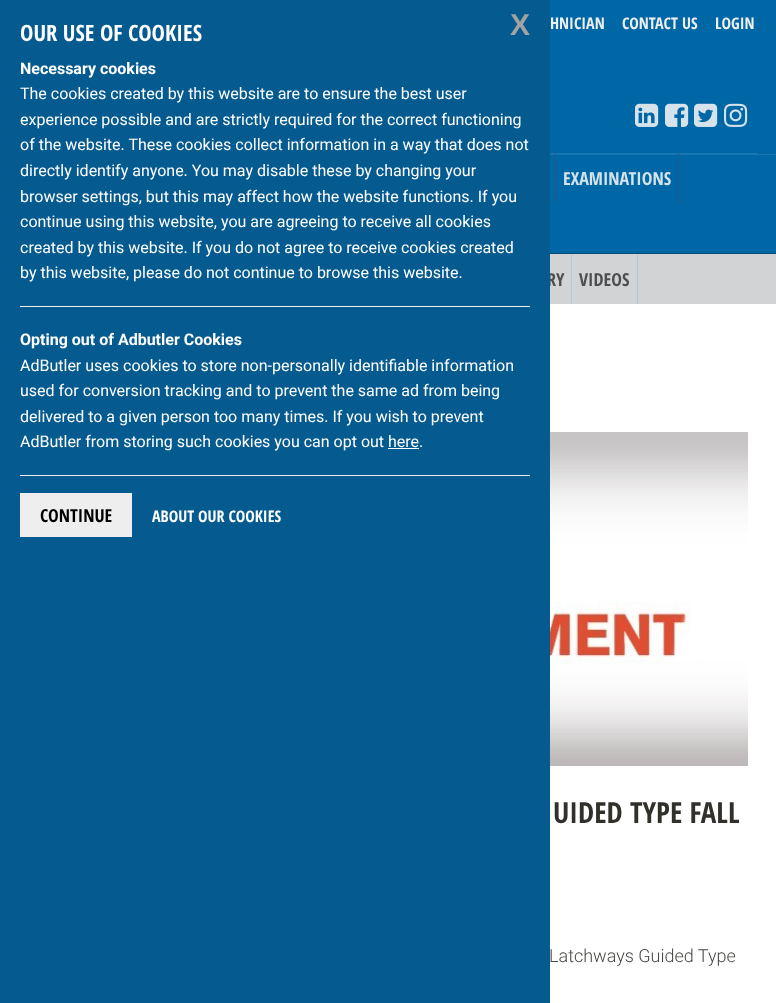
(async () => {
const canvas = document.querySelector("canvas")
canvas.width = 776
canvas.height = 1003
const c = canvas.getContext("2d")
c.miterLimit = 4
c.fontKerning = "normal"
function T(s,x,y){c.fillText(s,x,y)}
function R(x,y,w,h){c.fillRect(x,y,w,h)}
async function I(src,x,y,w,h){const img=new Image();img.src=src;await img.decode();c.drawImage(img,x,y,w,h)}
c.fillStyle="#fff"
R(0,0,776,1003)
c.fillStyle="#d1d3d4"
R(550,254,226,50)
c.font="bold 18px Open Sans Condensed"
c.fillStyle="#4d4e50"
T("RY",547,286)
c.fillStyle="#055b90"
R(0,0,550,1003)
c.font="bold 22.5px Open Sans Condensed"
c.fillStyle="#fff"
T("OUR USE OF COOKIES",20,41)
c.font="bold 30px Liberation Sans"
c.fillStyle="#a2a2a2"
T("X",510,35)
c.font="bold 16px Roboto"
c.fillStyle="#fff"
T("Necessary cookies",20,74)
c.font="16px Roboto"
T("The cookies created by this website are to ensure the best user",20,99)
T("experience possible and are strictly required for the correct functioning",20,125)
T("of the website. These cookies collect information in a way that does not",20,150)
T("directly identify anyone. You may disable these by changing your",20,176)
T("browser settings, but this may affect how the website functions. If you",20,202)
T("continue using this website, you are agreeing to receive all cookies",20,227)
T("created by this website. If you do not agree to receive cookies created",20,253)
T("by this website, please do not continue to browse this website.",20,278)
c.fillStyle="#eee"
R(20,306,510,1)
c.font="bold 16px Roboto"
c.fillStyle="#fff"
T("Opting out of Adbutler Cookies",20,345)
c.font="16px Roboto"
T("AdButler uses cookies to store non-personally identifiable information",20,371)
T("used for conversion tracking and to prevent the same ad from being",20,396)
T("delivered to a given person too many times. If you wish to prevent",20,422)
T("AdButler from storing such cookies you can opt out here.",20,447)
R(388,448,31,1)
c.fillStyle="#eee"
R(20,475,510,1)
R(20,493,112,44)
c.font="bold 18px Open Sans Condensed"
c.fillStyle="#000"
T("CONTINUE",40,522)
c.font="bold 16px Open Sans Condensed"
c.fillStyle="#fff"
T("ABOUT OUR COOKIES",152,522)
c.fillStyle="#0067a6"
R(550,0,226,253)
c.fillStyle="#eee"
T("HNICIAN",550,29)
T("CONTACT US",622,29)
T("LOGIN",715,29)
await I("1.png",635,103,24,24)
await I("2.png",665,103,24,24)
await I("3.png",694,103,24,24)
await I("4.png",724,103,24,24)
c.fillStyle="#1976af"
R(550,154,226,1)
c.fillStyle="#0b4b73"
R(550,253,226,1)
c.fillStyle="#1a76af"
R(550,153,207,1)
c.fillStyle="#255c7e"
R(555,153,1,50)
R(678,153,1,50)
c.font="bold 18px Open Sans Condensed"
c.fillStyle="#d6e3eb"
T("EXAMINATIONS",563,185)
c.fillStyle="#b3c7d4"
R(571,254,1,50)
R(637,254,1,50)
c.fillStyle="#4d4e50"
T("VIDEOS",579,286)
await I("5.png",550,432,198,334)
c.font="bold 29px Open Sans Condensed"
c.fillStyle="#32302b"
T("UIDED TYPE FALL",553,823)
c.font="300 18px Roboto"
c.fillStyle="#494743"
T("Latchways Guided Type",549,962)
})()
